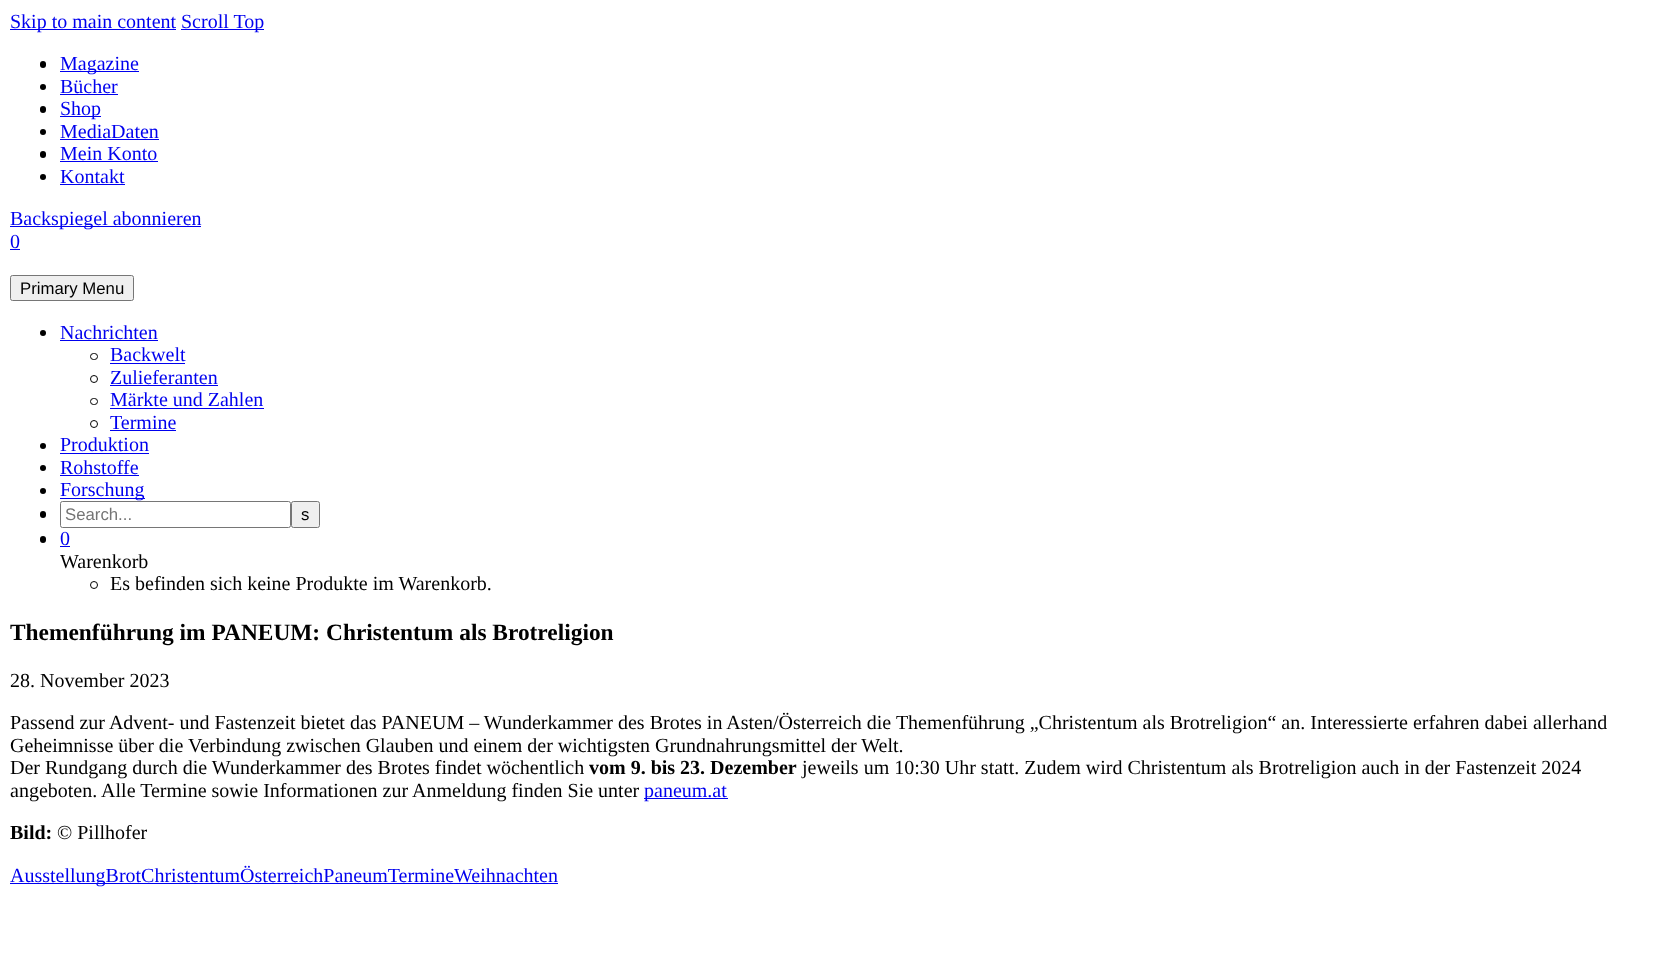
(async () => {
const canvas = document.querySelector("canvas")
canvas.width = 1655
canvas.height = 953
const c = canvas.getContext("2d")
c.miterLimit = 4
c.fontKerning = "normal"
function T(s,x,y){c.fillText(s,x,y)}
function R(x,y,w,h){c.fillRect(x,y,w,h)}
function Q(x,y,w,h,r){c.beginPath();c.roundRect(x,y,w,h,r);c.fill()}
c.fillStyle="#fff"
R(0,0,1655,953)
c.fillStyle="#00e"
R(10,29,166,1)
c.font="20px Liberation Serif"
T("Skip to main content",10,28)
R(181,29,83,1)
T("Scroll Top",181,28)
c.fillStyle="#000"
Q(40,61,6,7,3)
c.fillStyle="#00e"
R(60,71,79,1)
T("Magazine",60,70)
c.fillStyle="#000"
c.beginPath()
c.arc(43,87,3,0,7)
c.fill()
c.fillStyle="#00e"
T("Bücher",60,93)
R(60,94,58,1)
c.fillStyle="#000"
Q(40,106,6,7,3)
c.fillStyle="#00e"
R(60,116,41,1)
T("Shop",60,115)
c.fillStyle="#000"
c.beginPath()
c.arc(43,132,3,0,7)
c.fill()
c.fillStyle="#00e"
T("MediaDaten",60,138)
R(60,139,99,1)
c.fillStyle="#000"
Q(40,151,6,7,3)
c.fillStyle="#00e"
T("Mein Konto",60,160)
R(60,161,98,1)
c.fillStyle="#000"
c.beginPath()
c.arc(43,177,3,0,7)
c.fill()
c.fillStyle="#00e"
T("Kontakt",60,183)
R(60,184,65,1)
R(10,226,191,1)
T("Backspiegel abonnieren",10,225)
T("0",10,248)
R(10,249,10,1)
c.fillStyle="#efefef"
c.beginPath()
c.roundRect(10.5,275.5,123,25,2)
c.fill()
c.strokeStyle="#767676"
c.stroke()
c.font="16.75px Liberation Sans"
c.fillStyle="#000"
T("Primary Menu",20,294)
c.beginPath()
c.arc(43,333,3,0,7)
c.fill()
c.font="20px Liberation Serif"
c.fillStyle="#00e"
T("Nachrichten",60,339)
R(60,340,98,1)
c.beginPath()
c.roundRect(90.5,353.5,7,6,3)
c.strokeStyle="#000"
c.stroke()
T("Backwelt",110,361)
R(110,363,75,1)
c.beginPath()
c.arc(94,379,3.5,0,7)
c.stroke()
T("Zulieferanten",110,384)
R(110,385,108,1)
c.beginPath()
c.roundRect(90.5,398.5,7,6,3)
c.stroke()
T("Märkte und Zahlen",110,406)
R(110,408,154,1)
c.beginPath()
c.arc(94,424,3.5,0,7)
c.stroke()
T("Termine",110,429)
R(110,430,66,1)
c.fillStyle="#000"
c.beginPath()
c.arc(43,446,3,0,7)
c.fill()
c.fillStyle="#00e"
T("Produktion",60,451)
R(60,453,89,1)
c.fillStyle="#000"
c.beginPath()
c.arc(43,468,3,0,7)
c.fill()
c.fillStyle="#00e"
T("Rohstoffe",60,474)
R(60,475,79,1)
c.fillStyle="#000"
c.beginPath()
c.arc(43,491,3,0,7)
c.fill()
c.fillStyle="#00e"
R(60,498,85,1)
T("Forschung",60,496)
c.fillStyle="#000"
Q(40,511,6,7,3)
c.beginPath()
c.roundRect(60.5,501.5,230,26,2)
c.strokeStyle="#767676"
c.stroke()
c.font="16.75px Liberation Sans"
c.fillStyle="#757575"
T("Search...",65,520)
c.fillStyle="#efefef"
c.beginPath()
c.roundRect(291.5,501.5,28,26,2)
c.fill()
c.stroke()
c.fillStyle="#000"
T("s",301,520)
Q(40,536,6,7,3)
c.font="20px Liberation Serif"
c.fillStyle="#00e"
T("0",60,545)
R(60,546,10,1)
c.fillStyle="#000"
T("Warenkorb",60,568)
c.beginPath()
c.arc(94,585,3.5,0,7)
c.strokeStyle="#000"
c.stroke()
T("Es befinden sich keine Produkte im Warenkorb.",110,590)
c.font="bold 23.4px Liberation Serif"
T("Themenführung im PANEUM: Christentum als Brotreligion",10,640)
c.font="20px Liberation Serif"
T("28. November 2023",10,687)
T("Passend zur Advent‐ und Fastenzeit bietet das PANEUM – Wunderkammer des Brotes in Asten/Österreich die Themenführung „Christentum als Brotreligion“ an. Interessierte erfahren dabei allerhand",10,729)
T("Geheimnisse über die Verbindung zwischen Glauben und einem der wichtigsten Grundnahrungsmittel der Welt.",10,752)
T("Der Rundgang durch die Wunderkammer des Brotes findet wöchentlich",10,774)
c.font="bold 20px Liberation Serif"
T("vom 9. bis 23. Dezember",589,774)
c.font="20px Liberation Serif"
T("jeweils um 10:30 Uhr statt. Zudem wird Christentum als Brotreligion auch in der Fastenzeit 2024",802,774)
T("angeboten. Alle Termine sowie Informationen zur Anmeldung finden Sie unter",10,797)
c.fillStyle="#00e"
R(644,798,84,1)
T("paneum.at",644,797)
c.font="bold 20px Liberation Serif"
c.fillStyle="#000"
T("Bild:",10,839)
c.font="20px Liberation Serif"
T("© Pillhofer",57,839)
c.fillStyle="#00e"
R(10,883,95,1)
T("AusstellungBrotChristentumÖsterreichPaneumTermineWeihnachten",10,882)
R(105,883,453,1)
})()
